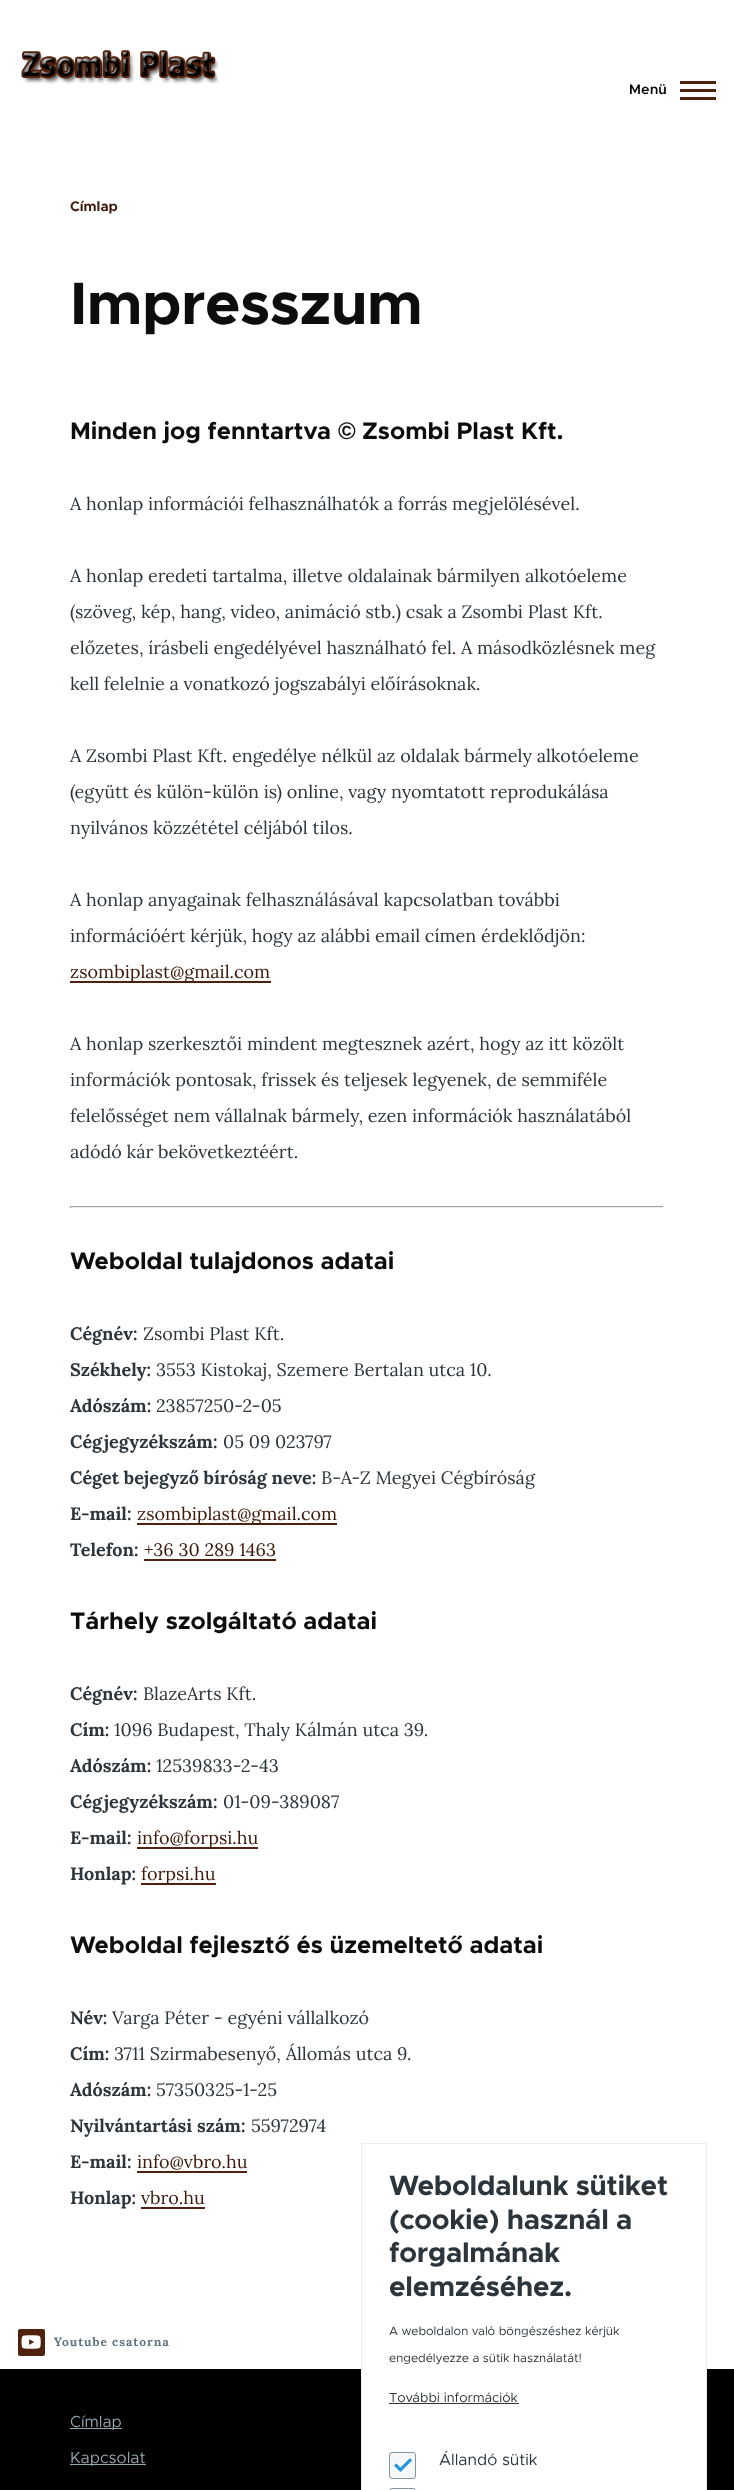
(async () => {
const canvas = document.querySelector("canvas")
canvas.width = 734
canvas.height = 2490
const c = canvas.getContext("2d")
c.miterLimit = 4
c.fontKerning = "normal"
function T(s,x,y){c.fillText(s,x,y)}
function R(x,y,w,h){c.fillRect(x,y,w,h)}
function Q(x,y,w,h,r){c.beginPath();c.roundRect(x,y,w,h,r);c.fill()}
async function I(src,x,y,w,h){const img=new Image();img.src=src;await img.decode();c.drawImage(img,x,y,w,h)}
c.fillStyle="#fff"
R(0,0,734,2490)
await I("1.png",21,50,197,34)
c.letterSpacing="0.5px"
c.font="600 14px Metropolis"
c.fillStyle="#000"
T("Menü",629,94)
c.fillStyle="#50210c"
R(680,89,36,3)
R(680,81,36,3)
R(680,97,36,3)
c.letterSpacing="0px"
c.font="bold 14px Metropolis"
c.fillStyle="#3d1909"
T("Címlap",70,211)
c.letterSpacing="-0.5px"
c.font="bold 60px Metropolis"
c.fillStyle="#0b0d0f"
T("Impresszum",70,324)
c.letterSpacing="0px"
c.font="bold 24px Metropolis"
T("Minden jog fenntartva",70,439)
c.font="bold 24px Liberation Sans"
T("©",338,439)
c.font="bold 24px Metropolis"
T("Zsombi Plast Kft.",362,439)
c.font="18px Lora"
c.fillStyle="#2b353b"
T("A honlap információi felhasználhatók a forrás megjelölésével.",70,510)
T("A honlap eredeti tartalma, illetve oldalainak bármilyen alkotóeleme",70,582)
T("(szöveg, kép, hang, video, animáció stb.) csak a Zsombi Plast Kft.",70,618)
T("előzetes, írásbeli engedélyével használható fel. A másodközlésnek meg",70,654)
T("kell felelnie a vonatkozó jogszabályi előírásoknak.",70,690)
T("A Zsombi Plast Kft. engedélye nélkül az oldalak bármely alkotóeleme",70,762)
T("(együtt és külön-külön is) online, vagy nyomtatott reprodukálása",70,798)
T("nyilvános közzététel céljából tilos.",70,834)
T("A honlap anyagainak felhasználásával kapcsolatban további",70,906)
T("információért kérjük, hogy az alábbi email címen érdeklődjön:",70,942)
c.fillStyle="#50210c"
R(70,981,201,2)
c.fillStyle="#3d1909"
T("zsombiplast@gmail.com",70,978)
c.fillStyle="#2b353b"
T("A honlap szerkesztői mindent megtesznek azért, hogy az itt közölt",70,1050)
T("információk pontosak, frissek és teljesek legyenek, de semmiféle",70,1086)
T("felelősséget nem vállalnak bármely, ezen információk használatából",70,1122)
T("adódó kár bekövetkeztéért.",70,1158)
c.fillStyle="#9f9f9f"
R(70,1206,594,1)
c.fillStyle="#eee"
R(663,1206,1,2)
R(70,1207,594,1)
c.fillStyle="#9f9f9f"
R(70,1206,1,2)
c.font="bold 24px Metropolis"
c.fillStyle="#0b0d0f"
T("Weboldal tulajdonos adatai",70,1269)
c.font="bold 18px Lora"
c.fillStyle="#2b353b"
T("Cégnév:",70,1340)
c.font="18px Lora"
T("Zsombi Plast Kft.",143,1340)
c.font="bold 18px Lora"
T("Székhely:",70,1376)
c.font="18px Lora"
T("3553 Kistokaj, Szemere Bertalan utca 10.",156,1376)
c.font="bold 18px Lora"
T("Adószám:",70,1412)
c.font="18px Lora"
T("23857250-2-05",156,1412)
c.font="bold 18px Lora"
T("Cégjegyzékszám:",70,1448)
c.font="18px Lora"
T("05 09 023797",223,1448)
c.font="bold 18px Lora"
T("Céget bejegyző bíróság neve:",70,1484)
c.font="18px Lora"
T("B-A-Z Megyei Cégbíróság",321,1484)
c.font="bold 18px Lora"
T("E-mail:",70,1520)
c.fillStyle="#50210c"
R(137,1523,200,2)
c.font="18px Lora"
c.fillStyle="#3d1909"
T("zsombiplast@gmail.com",137,1520)
c.font="bold 18px Lora"
c.fillStyle="#2b353b"
T("Telefon:",70,1556)
c.font="18px Lora"
c.fillStyle="#3d1909"
T("+36 30 289 1463",144,1556)
c.fillStyle="#50210c"
R(144,1559,132,2)
c.font="bold 24px Metropolis"
c.fillStyle="#0b0d0f"
T("Tárhely szolgáltató adatai",70,1629)
c.font="bold 18px Lora"
c.fillStyle="#2b353b"
T("Cégnév:",70,1700)
c.font="18px Lora"
T("BlazeArts Kft.",143,1700)
c.font="bold 18px Lora"
T("Cím:",70,1736)
c.font="18px Lora"
T("1096 Budapest, Thaly Kálmán utca 39.",114,1736)
c.font="bold 18px Lora"
T("Adószám:",70,1772)
c.font="18px Lora"
T("12539833-2-43",156,1772)
c.font="bold 18px Lora"
T("Cégjegyzékszám:",70,1808)
c.font="18px Lora"
T("01-09-389087",223,1808)
c.font="bold 18px Lora"
T("E-mail:",70,1844)
c.fillStyle="#50210c"
R(137,1847,121,2)
c.font="18px Lora"
c.fillStyle="#3d1909"
T("info@forpsi.hu",137,1844)
c.font="bold 18px Lora"
c.fillStyle="#2b353b"
T("Honlap:",70,1880)
c.fillStyle="#50210c"
R(141,1883,75,2)
c.font="18px Lora"
c.fillStyle="#3d1909"
T("forpsi.hu",141,1880)
c.font="bold 24px Metropolis"
c.fillStyle="#0b0d0f"
T("Weboldal fejlesztő és üzemeltető adatai",70,1953)
c.font="bold 18px Lora"
c.fillStyle="#2b353b"
T("Név:",70,2024)
c.font="18px Lora"
T("Varga Péter - egyéni vállalkozó",112,2024)
c.font="bold 18px Lora"
T("Cím:",70,2060)
c.font="18px Lora"
T("3711 Szirmabesenyő, Állomás utca 9.",114,2060)
c.font="bold 18px Lora"
T("Adószám:",70,2096)
c.font="18px Lora"
T("57350325-1-25",156,2096)
c.font="bold 18px Lora"
T("Nyilvántartási szám:",70,2132)
c.font="18px Lora"
T("55972974",251,2132)
c.font="bold 18px Lora"
T("E-mail:",70,2168)
c.font="18px Lora"
c.fillStyle="#3d1909"
T("info@vbro.hu",137,2168)
c.fillStyle="#50210c"
R(137,2171,110,2)
c.font="bold 18px Lora"
c.fillStyle="#2b353b"
T("Honlap:",70,2204)
c.font="18px Lora"
c.fillStyle="#3d1909"
T("vbro.hu",141,2204)
c.fillStyle="#50210c"
R(141,2207,64,2)
Q(18,2329,27,27,2)
await I("2.png",21,2335,20,14)
c.letterSpacing="1px"
c.font="bold 12px Lora"
c.fillStyle="#5f7581"
T("Youtube csatorna",54,2346)
c.fillStyle="#000"
R(0,2369,734,121)
c.fillStyle="#92a5af"
R(70,2428,52,1)
c.letterSpacing="0px"
c.font="16px Metropolis"
T("Címlap",70,2427)
R(70,2464,76,1)
T("Kapcsolat",70,2463)
c.fillStyle="#fff"
R(362,2369,344,121)
c.strokeStyle="#eaeef0"
c.strokeRect(361.5,2143.5,345,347)
c.letterSpacing="-0.25px"
c.font="bold 28px Metropolis"
c.fillStyle="#2b353b"
T("Weboldalunk sütiket",389,2195)
T("(cookie) használ a",389,2229)
T("forgalmának",389,2262)
T("elemzéséhez.",389,2296)
c.letterSpacing="0px"
c.font="12px Metropolis"
T("A weboldalon való böngészéshez kérjük",389,2335)
T("engedélyezze a sütik használatát!",389,2362)
c.font="13.25px Metropolis"
T("További információk",389,2402)
R(389,2403,130,1)
c.fillStyle="#f6f8f8"
Q(389,2452,27,27,3)
await I("3.png",394,2458,18,14)
c.beginPath()
c.roundRect(389.5,2452.5,26,26,2.5)
c.strokeStyle="#8196a2"
c.stroke()
c.font="16px Metropolis"
c.fillStyle="#2b353b"
T("Állandó sütik",439,2465)
c.beginPath()
c.roundRect(389.5,2488.5,26,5,2.5)
c.stroke()
})()
